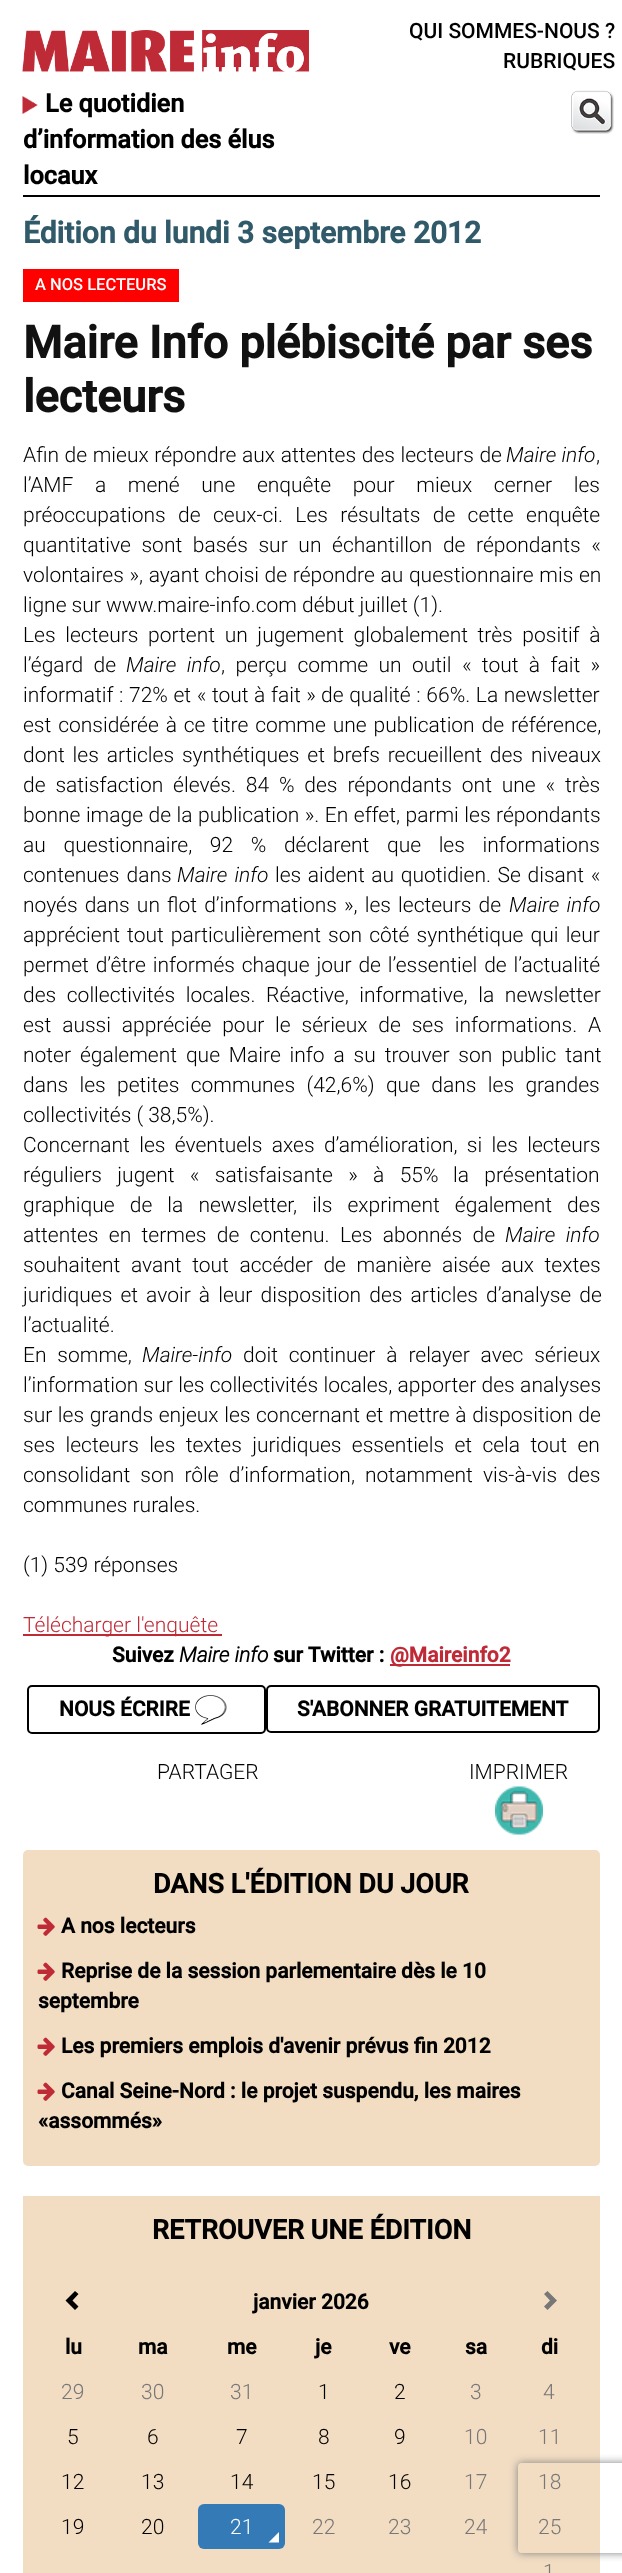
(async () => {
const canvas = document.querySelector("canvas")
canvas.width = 622
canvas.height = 2573
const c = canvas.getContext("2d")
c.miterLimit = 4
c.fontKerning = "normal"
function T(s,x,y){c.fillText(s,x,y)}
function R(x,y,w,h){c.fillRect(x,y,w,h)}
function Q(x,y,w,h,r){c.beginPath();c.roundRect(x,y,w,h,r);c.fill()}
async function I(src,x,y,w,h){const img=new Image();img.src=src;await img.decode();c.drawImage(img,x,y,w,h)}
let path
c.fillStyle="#fff"
R(0,0,622,2573)
c.font="500 21px Roboto"
c.fillStyle="#000"
T("QUI SOMMES-NOUS ?",409,38)
T("RUBRIQUES",503,68)
await I("1.png",571,90,43,44)
await I("2.png",22,30,287,42)
await I("3.png",22,96,16,18)
c.font="bold 25.25px Roboto"
T("Le quotidien",45,112)
T("d’information des élus",23,148)
T("locaux",23,184)
R(23,195,577,2)
c.font="bold 30px Roboto"
c.fillStyle="#30596a"
T("Édition du lundi 3 septembre 2012",23,243)
c.fillStyle="#f00"
R(23,269,156,33)
c.font="500 16.5px Roboto"
c.fillStyle="#fff"
T("A NOS LECTEURS",35,290)
c.font="bold 45px Roboto"
c.fillStyle="#111"
T("Maire Info plébiscité par ses",23,358)
T("lecteurs",23,412)
c.wordSpacing="0.5px"
c.font="300 21px Roboto"
c.fillStyle="#000"
T("Afin de mieux répondre aux attentes des lecteurs de",23,462)
c.wordSpacing="0px"
c.font="italic 300 21px Roboto"
T("Maire info",506,462)
c.font="300 21px Roboto"
T(",",596,462)
c.wordSpacing="16.5px"
T("l’AMF a mené une enquête pour mieux cerner les",23,492)
c.wordSpacing="7.25px"
T("préoccupations de ceux-ci. Les résultats de cette enquête",23,522)
c.wordSpacing="5.5px"
T("quantitative sont basés sur un échantillon de répondants «",23,552)
c.wordSpacing="0.5px"
T("volontaires », ayant choisi de répondre au questionnaire mis en",23,582)
c.wordSpacing="0px"
T("ligne sur www.maire-info.com début juillet (1).",23,612)
c.wordSpacing="4.5px"
T("Les lecteurs portent un jugement globalement très positif à",23,642)
c.wordSpacing="5.25px"
T("l’égard de",23,672)
c.font="italic 300 21px Roboto"
T("Maire info",126,672)
c.font="300 21px Roboto"
T(", perçu comme un outil « tout à fait »",221,672)
c.wordSpacing="0.5px"
T("informatif : 72% et « tout à fait »",23,702)
T("de qualité : 66%. La newsletter",321,702)
c.wordSpacing="1.75px"
T("est considérée à ce titre comme une publication de référence,",23,732)
c.wordSpacing="2.75px"
T("dont les articles synthétiques et brefs recueillent des niveaux",23,762)
c.wordSpacing="4.75px"
T("de satisfaction élevés. 84 % des répondants ont une « très",23,792)
c.wordSpacing="0.4px"
T("bonne image de la publication ». En effet, parmi les répondants",23,822)
c.wordSpacing="12.5px"
T("au questionnaire, 92 % déclarent que les informations",23,852)
c.wordSpacing="2px"
T("contenues dans",23,882)
c.font="italic 300 21px Roboto"
T("Maire info",177,882)
c.wordSpacing="1.5px"
c.font="300 21px Roboto"
T("les aident au quotidien. Se disant «",275,882)
c.wordSpacing="2px"
T("noyés dans un flot d’informations », les lecteurs de",23,912)
c.font="italic 300 21px Roboto"
T("Maire info",509,912)
c.font="300 21px Roboto"
T("apprécient tout particulièrement son côté synthétique qui leur",23,942)
c.wordSpacing="1.75px"
T("permet d’être informés chaque jour de l’essentiel de l’actualité",23,972)
c.wordSpacing="5.5px"
T("des collectivités locales. Réactive, informative, la newsletter",23,1002)
c.wordSpacing="5.75px"
T("est aussi appréciée pour le sérieux de ses informations. A",23,1032)
c.wordSpacing="3.75px"
T("noter également que Maire info a su trouver son public tant",23,1062)
c.wordSpacing="6.25px"
T("dans les petites communes (42,6%) que dans les grandes",23,1092)
c.wordSpacing="0px"
T("collectivités ( 38,5%).",23,1122)
c.wordSpacing="4.25px"
T("Concernant les éventuels axes d’amélioration, si les lecteurs",23,1152)
c.wordSpacing="10.25px"
T("réguliers jugent « satisfaisante » à 55%",23,1182)
T("la présentation",453,1182)
c.wordSpacing="10px"
T("graphique de la newsletter, ils expriment également des",23,1212)
c.wordSpacing="5.25px"
T("attentes en termes de contenu. Les abonnés de",23,1242)
c.font="italic 300 21px Roboto"
T("Maire info",505,1242)
c.wordSpacing="5.5px"
c.font="300 21px Roboto"
T("souhaitent avant tout accéder de manière aisée aux textes",23,1272)
c.wordSpacing="3px"
T("juridiques et avoir à leur disposition des articles d’analyse de",23,1302)
c.wordSpacing="0px"
T("l’actualité.",23,1332)
c.wordSpacing="5.75px"
T("En somme,",23,1362)
c.wordSpacing="0px"
c.font="italic 300 21px Roboto"
T("Maire-info",142,1362)
c.wordSpacing="5.75px"
c.font="300 21px Roboto"
T("doit continuer à relayer avec sérieux",243,1362)
c.wordSpacing="0.25px"
T("l’information sur les collectivités locales, apporter des analyses",23,1392)
c.wordSpacing="0.5px"
T("sur les grands enjeux les concernant et mettre à disposition de",23,1422)
c.wordSpacing="5.25px"
T("ses lecteurs les textes juridiques essentiels et cela tout en",23,1452)
c.wordSpacing="5px"
T("consolidant son rôle d’information, notamment vis-à-vis des",23,1482)
c.wordSpacing="0px"
T("communes rurales.",23,1512)
T("(1) 539 réponses",23,1572)
c.fillStyle="#bf2a37"
R(23,1634,199,2)
T("Télécharger l'enquête",23,1632)
c.font="bold 21px Roboto"
c.fillStyle="#000"
T("Suivez",112,1662)
c.font="italic bold 21px Roboto"
T("Maire info",179,1662)
c.font="bold 21px Roboto"
T("sur Twitter :",273,1662)
c.fillStyle="#bf2a37"
R(390,1664,120,2)
T("@Maireinfo2",390,1662)
c.beginPath()
c.roundRect(28,1686,237,47,4)
c.strokeStyle="#000"
c.lineWidth=2
c.stroke()
c.fillStyle="#000"
T("NOUS ÉCRIRE",59,1716)
await I("4.png",195,1695,32,30)
c.beginPath()
c.roundRect(267,1686,332,46,4)
c.stroke()
T("S'ABONNER GRATUITEMENT",297,1716)
c.font="300 21px Roboto"
T("PARTAGER",157,1779)
T("IMPRIMER",469,1779)
await I("5.png",495,1786,48,49)
c.fillStyle="#f2ddc3"
Q(23,1850,577,316,5)
c.font="bold 27px Roboto"
c.fillStyle="#000"
T("DANS L'ÉDITION DU JOUR",153,1893)
await I("6.png",37,1917,18,19)
c.font="bold 21px Roboto"
T("A nos lecteurs",61,1933)
await I("6.png",37,1962,18,19)
T("Reprise de la session parlementaire dès le 10",61,1978)
T("septembre",38,2008)
await I("6.png",37,2037,18,19)
T("Les premiers emplois d'avenir prévus fin 2012",61,2053)
await I("6.png",37,2082,18,19)
T("Canal Seine-Nord : le projet suspendu, les maires",61,2098)
T("«assommés»",38,2128)
c.fillStyle="#f2ddc3"
R(23,2196,577,377)
c.font="bold 27px Roboto"
c.fillStyle="#000"
T("RETROUVER UNE ÉDITION",152,2239)
path = new Path2D("M78.5 2294l-6 6.5l6 6l-3.5 3.5l-9.5-9.5l9.5-9.5z")
c.fill(path)
c.font="bold 21px Roboto"
T("janvier 2026",253,2309)
c.fillStyle="#777"
path = new Path2D("M557 2300.5l-9.5 9.5l-3.5-3.5l6-6l-6-6.5l3.5-3z")
c.fill(path)
c.fillStyle="#000"
T("lu",65,2354)
T("ma",138,2354)
T("me",227,2354)
T("je",315,2354)
T("ve",389,2354)
T("sa",465,2354)
T("di",541,2354)
c.font="300 21px Roboto"
c.fillStyle="#777"
T("29",61,2399)
T("30",141,2399)
T("31",230,2399)
c.fillStyle="#000"
T("1",318,2399)
T("2",394,2399)
c.fillStyle="#777"
T("3",470,2399)
T("4",543,2399)
c.fillStyle="#000"
T("5",67,2444)
T("6",147,2444)
T("7",236,2444)
T("8",318,2444)
T("9",394,2444)
c.fillStyle="#777"
T("10",464,2444)
T("11",538,2444)
c.fillStyle="#000"
T("12",61,2489)
T("13",141,2489)
T("14",230,2489)
T("15",312,2489)
T("16",388,2489)
c.fillStyle="#777"
T("17",464,2489)
T("18",538,2489)
c.fillStyle="#000"
T("19",61,2534)
T("20",141,2534)
c.fillStyle="#337ab7"
Q(198,2504,87,45,6)
c.fillStyle="#fff"
T("21",230,2534)
path = new Path2D("M279 2542.5h-10.5l10.5-10.5z")
c.fill(path)
c.fillStyle="#777"
T("22",312,2534)
T("23",388,2534)
T("24",464,2534)
T("25",538,2534)
T("1",543,2579)
c.save()
path = new Path2D("M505 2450h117v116h-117zm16 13h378c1.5 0 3 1.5 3 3v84c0 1.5-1.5 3-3 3h-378c-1.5 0-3-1.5-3-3v-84c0-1.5 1.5-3 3-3z")
c.clip(path,"evenodd")
c.fillStyle="#808080"
c.filter="blur(4px)"
c.beginPath()
c.roundRect(518,2463,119,90,3)
c.fill()
c.filter="none"
c.restore()
})()
